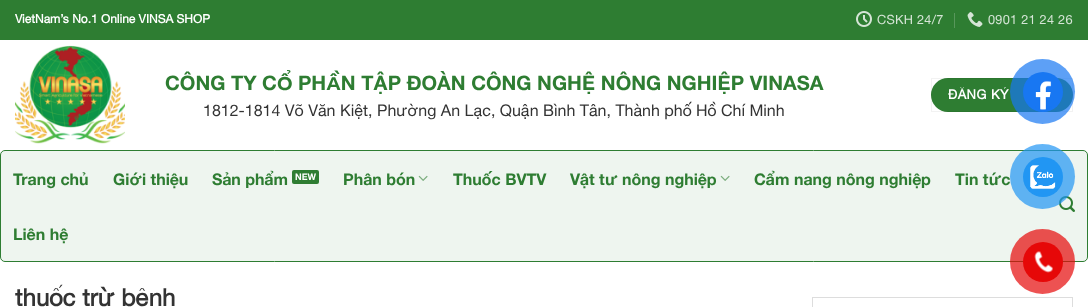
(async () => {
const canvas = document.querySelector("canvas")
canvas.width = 1088
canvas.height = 307
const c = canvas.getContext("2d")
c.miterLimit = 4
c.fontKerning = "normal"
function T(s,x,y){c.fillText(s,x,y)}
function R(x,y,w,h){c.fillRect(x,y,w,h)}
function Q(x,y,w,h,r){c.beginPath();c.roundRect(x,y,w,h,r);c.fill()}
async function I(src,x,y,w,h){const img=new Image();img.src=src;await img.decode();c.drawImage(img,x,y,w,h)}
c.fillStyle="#fff"
R(0,0,1088,307)
c.fillStyle="#2e7d32"
R(0,0,1088,40)
c.font="bold 12px Helvetica Neue"
c.fillStyle="#fff"
T("VietNam’s No.1 Online VINSA SHOP",15,23)
await I("1.png",856,11,16,16)
c.letterSpacing="0.25px"
c.font="12.75px Helvetica Neue"
c.fillStyle="#d5e5d6"
T("CSKH 24/7",877,24)
c.fillStyle="#58975b"
R(954,13,1,15)
await I("2.png",967,12,16,15)
c.fillStyle="#d5e5d6"
T("0901 21 24 26",988,24)
await I("3.png",15,45,110,99)
c.letterSpacing="0px"
c.font="bold 20px 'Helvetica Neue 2'"
c.fillStyle="#2e7d32"
T("CÔNG TY CỔ PHẦN TẬP ĐOÀN CÔNG NGHỆ NÔNG NGHIỆP VINASA",165,90)
c.font="16px Helvetica Neue"
c.fillStyle="#333"
T("1812-1814 Võ Văn Kiệt, Phường An Lạc, Quận Bình Tân, Thành phố Hồ Chí Minh",203,116)
c.fillStyle="#2e7d32"
Q(931,78,142,34,17)
c.strokeStyle="#0000000d"
c.strokeRect(931.5,78.5,141,33)
c.letterSpacing="0.5px"
c.font="bold 13px Helvetica Neue"
c.fillStyle="#fff"
T("ĐĂNG KÝ",948,99)
c.fillStyle="#eef5ef"
c.beginPath()
c.roundRect(.5,150.5,1087,111,4.5)
c.fill()
c.strokeStyle="#2e7d32"
c.stroke()
c.letterSpacing="0px"
c.font="bold 16px 'Helvetica Neue 2'"
c.fillStyle="#2e7d32"
T("Trang chủ",13,185)
T("Giới thiệu",113,185)
T("Sản phẩm",212,185)
Q(292,170,27,14,2)
c.font="bold 9px 'Helvetica Neue 2'"
c.fillStyle="#fff"
T("NEW",295,180)
c.font="bold 16px 'Helvetica Neue 2'"
c.fillStyle="#2e7d32"
T("Phân bón",343,185)
await I("4.png",418,175,10,6)
T("Thuốc BVTV",453,185)
T("Vật tư nông nghiệp",570,185)
await I("4.png",720,175,10,6)
T("Cẩm nang nông nghiệp",754,185)
T("Tin tức",955,185)
T("Liên hệ",13,240)
await I("5.png",1059,196,16,16)
c.font="bold 24px Helvetica Neue"
c.fillStyle="#333"
T("thuốc trừ bệnh",15,306)
c.strokeStyle="#ddd"
c.strokeRect(812.5,297.5,260,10)
c.fillStyle="#1877f2b3"
c.beginPath()
c.arc(1042.5,91.5,32.5,0,7)
c.fill()
c.fillStyle="#1877f2"
c.beginPath()
c.arc(1043,92,20,0,7)
c.fill()
await I("6.png",1035,81,17,29)
c.fillStyle="#2196f3b3"
c.beginPath()
c.arc(1042.5,176.5,32.5,0,7)
c.fill()
c.fillStyle="#2196f3"
c.beginPath()
c.arc(1043,177,20,0,7)
c.fill()
await I("7.png",1030,165,26,24)
c.fillStyle="#e60808b3"
c.beginPath()
c.arc(1042.5,261.5,32.5,0,7)
c.fill()
c.fillStyle="#e60808"
c.beginPath()
c.arc(1043,262,20,0,7)
c.fill()
await I("8.png",1034,251,19,22)
})()
